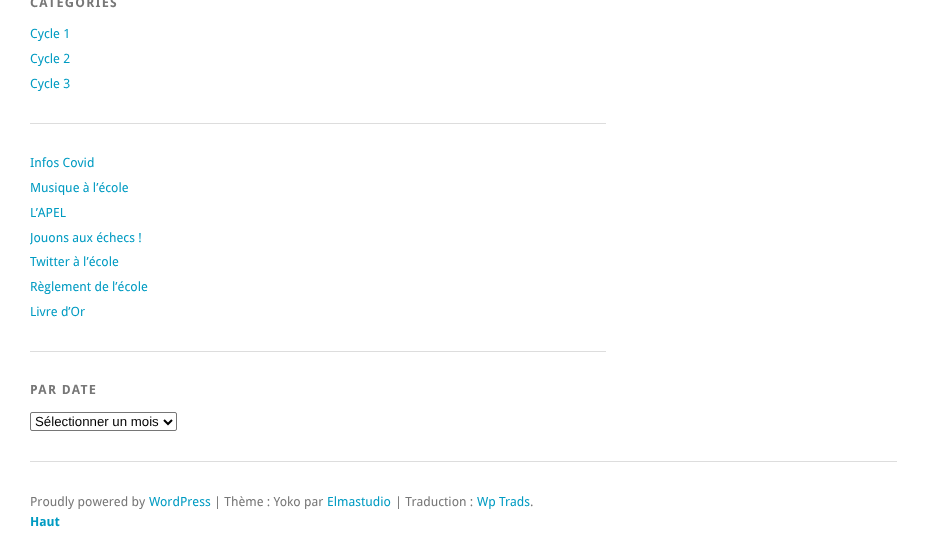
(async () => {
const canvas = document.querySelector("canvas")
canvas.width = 927
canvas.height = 559
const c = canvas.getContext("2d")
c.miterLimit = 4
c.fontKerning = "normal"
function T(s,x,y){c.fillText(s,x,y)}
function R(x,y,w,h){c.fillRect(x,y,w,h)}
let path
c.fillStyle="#fff"
R(0,0,927,559)
c.fillStyle="#ddd"
R(30,461,867,1)
R(30,123,576,1)
c.letterSpacing="1.25px"
c.font="bold 12.75px Droid Sans"
c.fillStyle="#777"
T("CATÉGORIES",30,7)
c.letterSpacing="0px"
c.font="12.75px Droid Sans"
c.fillStyle="#009bc2"
T("Cycle 1",30,38)
T("Cycle 2",30,63)
T("Cycle 3",30,88)
c.fillStyle="#ddd"
R(30,351,576,1)
c.fillStyle="#009bc2"
T("Infos Covid",30,167)
T("Musique à l’école",30,192)
T("L’APEL",30,217)
c.save()
c.beginPath()
c.rect(30,154,576,197)
c.clip()
T("Jouons aux échecs !",30,242)
c.restore()
T("Twitter à l’école",30,266)
T("Règlement de l’école",30,291)
T("Livre d’Or",30,316)
c.letterSpacing="1.25px"
c.font="bold 12.75px Droid Sans"
c.fillStyle="#777"
T("PAR DATE",30,394)
c.beginPath()
c.roundRect(30.5,412.5,146,18,1.5)
c.strokeStyle="#767676"
c.stroke()
path = new Path2D("M164 420l4 4l4-4")
c.strokeStyle="#000"
c.lineWidth=2
c.stroke(path)
c.letterSpacing="0px"
c.font="13.25px Liberation Sans"
c.fillStyle="#000"
T("Sélectionner un mois",35,426)
c.font="12.75px Droid Sans"
c.fillStyle="#777"
T("Proudly powered by",30,506)
c.fillStyle="#009bc2"
T("WordPress",149,506)
c.fillStyle="#777"
T("| Thème : Yoko par",214,506)
c.fillStyle="#009bc2"
T("Elmastudio",327,506)
c.fillStyle="#777"
T("| Traduction :",395,506)
c.fillStyle="#009bc2"
T("Wp Trads",477,506)
c.fillStyle="#777"
T(".",530,506)
c.font="bold 12.75px Droid Sans"
c.fillStyle="#009bc2"
T("Haut",30,526)
})()
